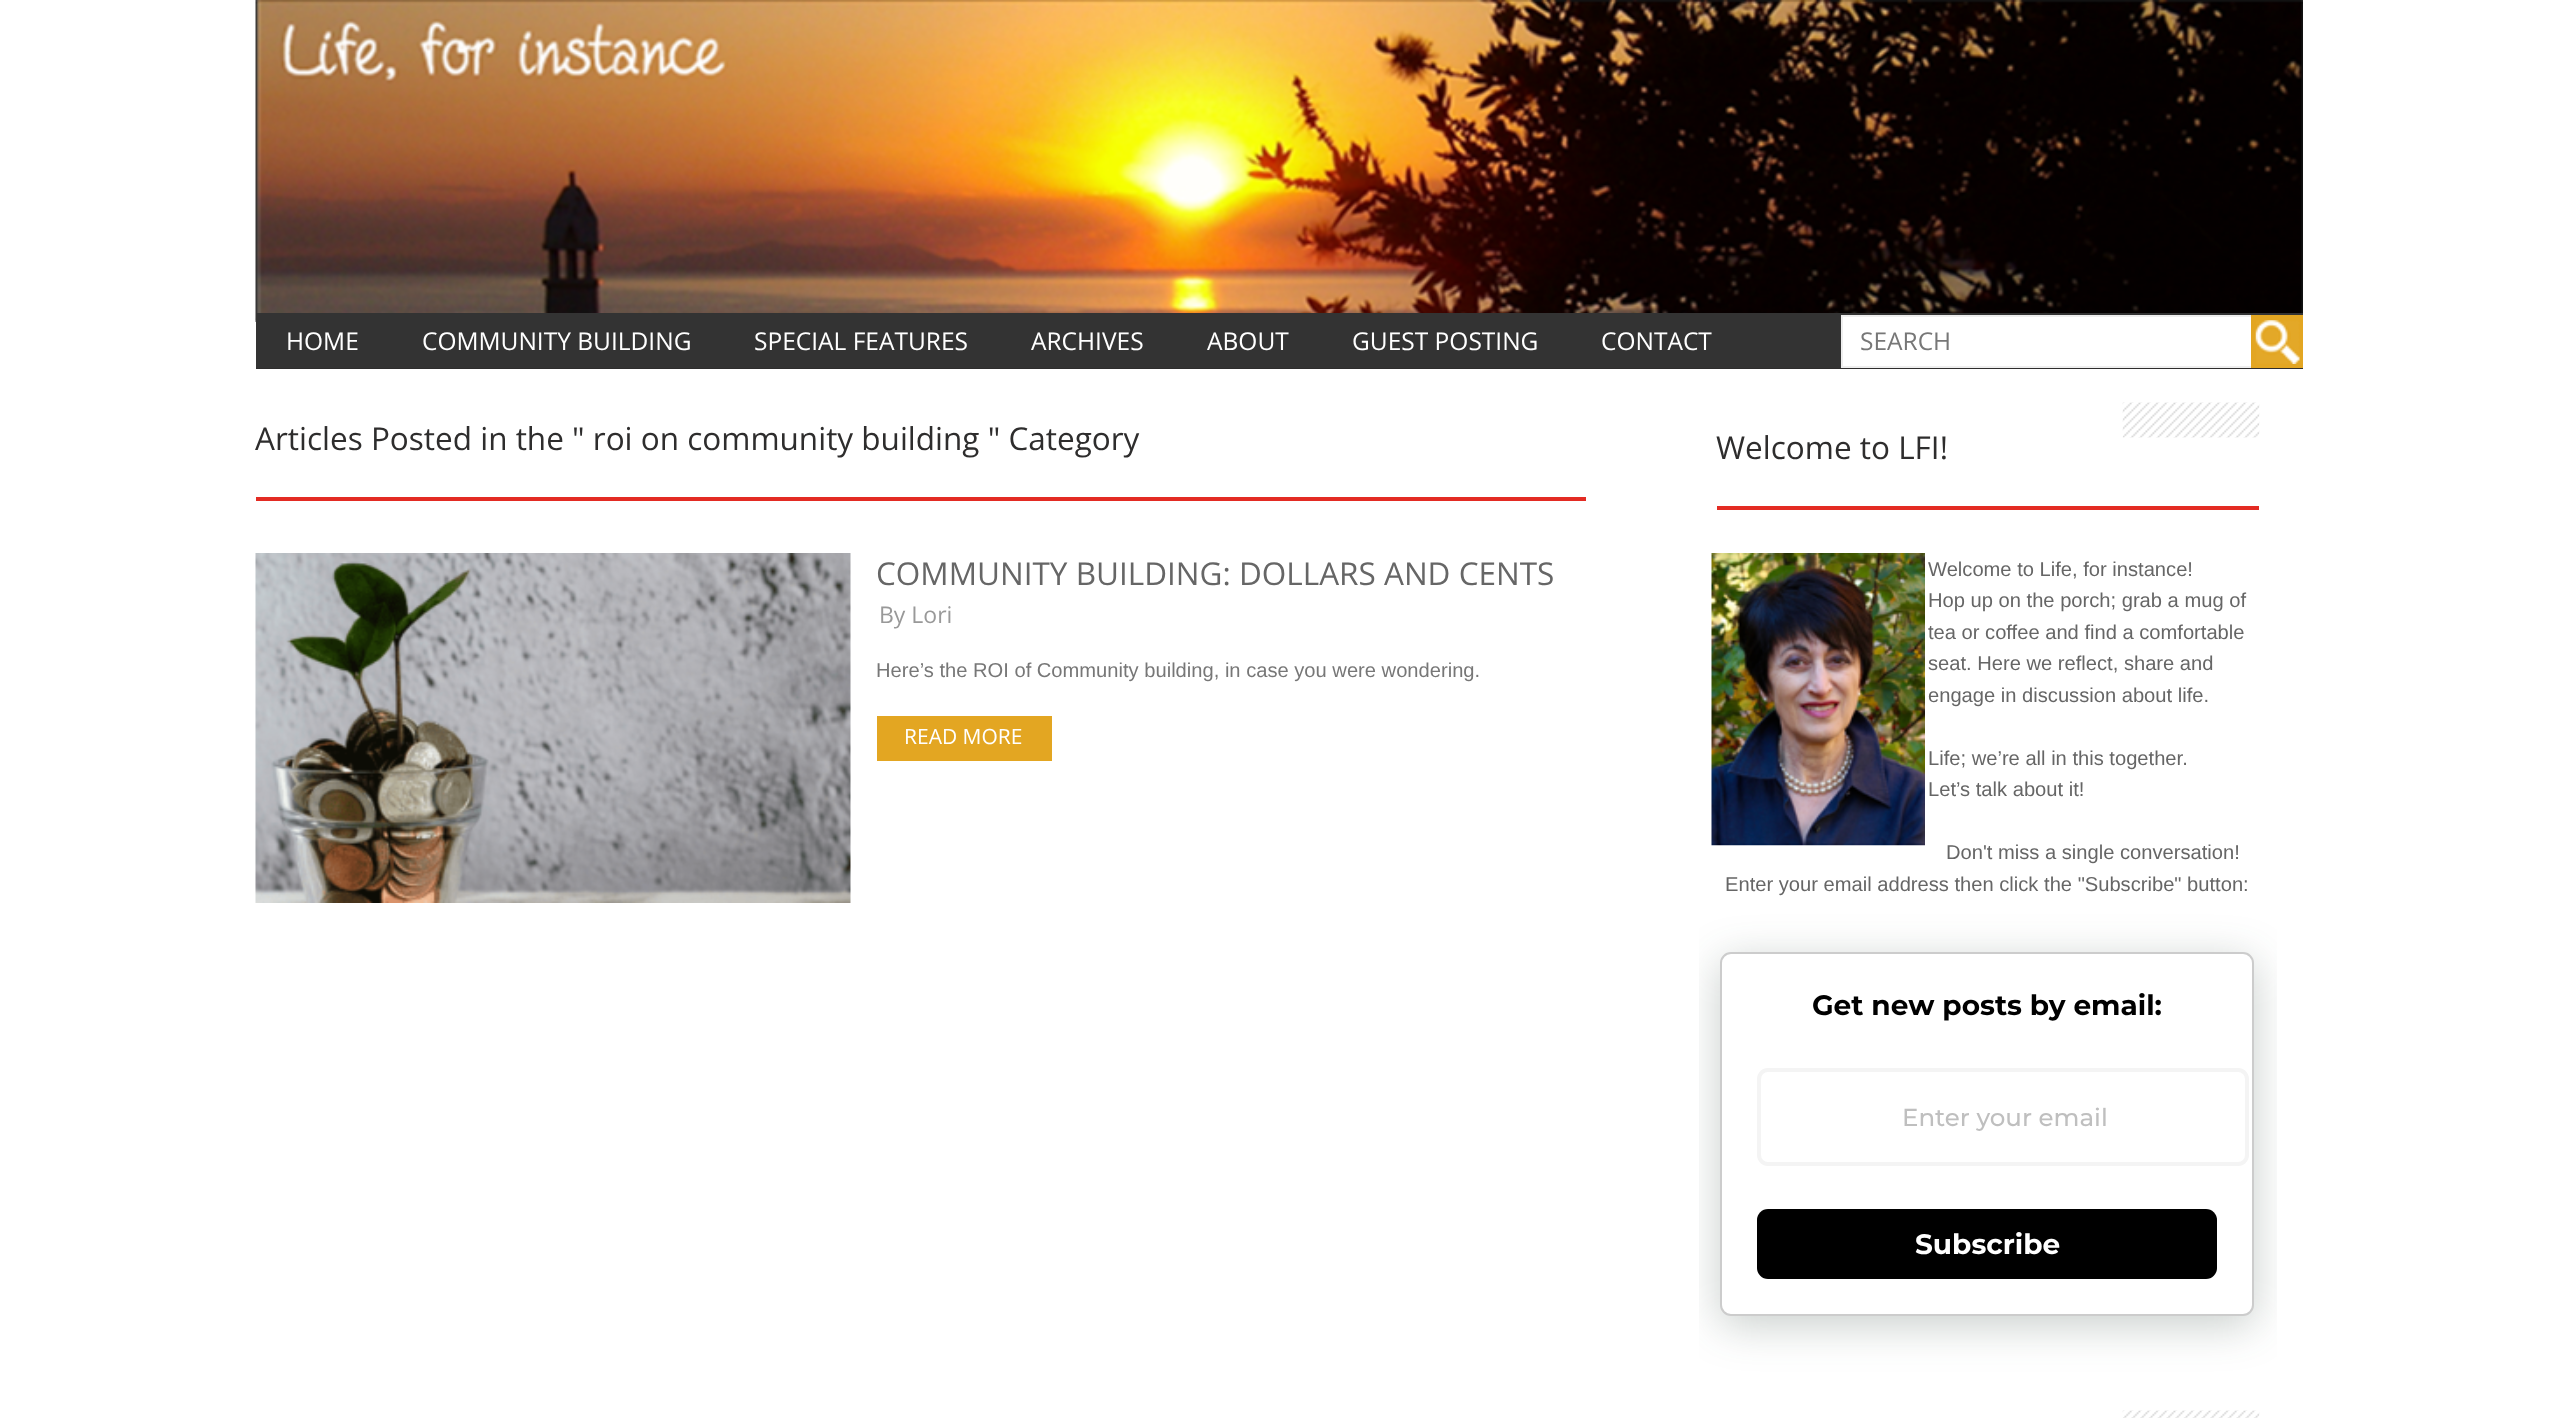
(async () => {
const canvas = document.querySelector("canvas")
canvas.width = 2556
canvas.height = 1418
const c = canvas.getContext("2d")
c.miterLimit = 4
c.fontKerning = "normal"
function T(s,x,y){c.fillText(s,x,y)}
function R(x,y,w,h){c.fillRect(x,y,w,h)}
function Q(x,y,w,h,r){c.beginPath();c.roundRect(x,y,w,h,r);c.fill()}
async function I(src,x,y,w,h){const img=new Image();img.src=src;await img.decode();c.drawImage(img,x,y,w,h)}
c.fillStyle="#fff"
R(0,0,2556,1418)
await I("1.png",255,0,2048,322)
c.fillStyle="#2e2d2d"
R(256,368,2047,1)
c.fillStyle="#333"
R(256,313,2047,55)
c.font="24.5px Open Sans"
c.fillStyle="#fff"
T("HOME",286,350)
T("COMMUNITY BUILDING",422,350)
T("SPECIAL FEATURES",754,350)
T("ARCHIVES",1031,350)
T("ABOUT",1207,350)
T("GUEST POSTING",1352,350)
T("CONTACT",1601,350)
R(1843,317,408,49)
c.fillStyle="#eee"
R(1841,315,410,2)
R(1841,366,410,2)
R(1841,315,2,53)
c.fillStyle="#777"
T("SEARCH",1860,350)
c.fillStyle="#e3a622"
R(2251,315,52,53)
await I("2.png",2255,320,45,44)
c.fillStyle="#e32b23"
R(256,497,1330,4)
c.font="31.5px Open Sans"
c.fillStyle="#2e2d2d"
T("Articles Posted in the \" roi on community building \" Category",255,450)
await I("3.png",255,553,596,350)
c.fillStyle="#666"
T("COMMUNITY BUILDING: DOLLARS AND CENTS",876,585)
c.font="23px Open Sans"
c.fillStyle="#999"
T("By Lori",879,623)
c.font="20.15px Liberation Sans"
c.fillStyle="#777"
T("Here’s the ROI of Community building, in case you were wondering.",876,677)
c.fillStyle="#e3a622"
R(877,716,175,45)
c.font="21px Open Sans"
c.fillStyle="#fff"
T("READ MORE",904,744)
await I("4.png",2122,402,138,36)
c.fillStyle="#e32b23"
R(1717,506,542,4)
c.font="31.5px Open Sans"
c.fillStyle="#2e2d2d"
T("Welcome to LFI!",1716,459)
await I("5.png",1711,553,214,293)
c.font="20.15px Liberation Sans"
c.fillStyle="#666"
T("Welcome to Life, for instance!",1928,576)
T("Hop up on the porch; grab a mug of",1928,607)
T("tea or coffee and find a comfortable",1928,639)
T("seat. Here we reflect, share and",1928,670)
T("engage in discussion about life.",1928,702)
T("Life; we’re all in this together.",1928,765)
T("Let’s talk about it!",1928,796)
T("Don't miss a single conversation!",1946,859)
T("Enter your email address then click the \"Subscribe\" button:",1725,891)
c.save()
c.beginPath()
c.rect(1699,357,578,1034)
c.clip()
c.fillStyle="#223c2f40"
c.filter="blur(22px)"
c.beginPath()
c.roundRect(1720,961,534,364,11)
c.fill()
c.filter="none"
c.restore()
c.fillStyle="#fff"
c.beginPath()
c.roundRect(1721,953,532,362,10)
c.fill()
c.strokeStyle="#ccc"
c.lineWidth=2
c.stroke()
c.font="bold 28px Montserrat"
c.fillStyle="#000"
T("Get new posts by email:",1812,1015)
c.beginPath()
c.roundRect(1759,1070,488,94,9)
c.strokeStyle="#f4f4f4"
c.lineWidth=4
c.stroke()
c.font="500 24.5px Montserrat"
c.fillStyle="#bfbfbf"
T("Enter your email",1902,1126)
c.fillStyle="#000"
Q(1757,1209,460,70,11)
c.font="bold 28px Montserrat"
c.fillStyle="#fff"
T("Subscribe",1915,1254)
await I("6.png",2122,1410,138,8)
})()
